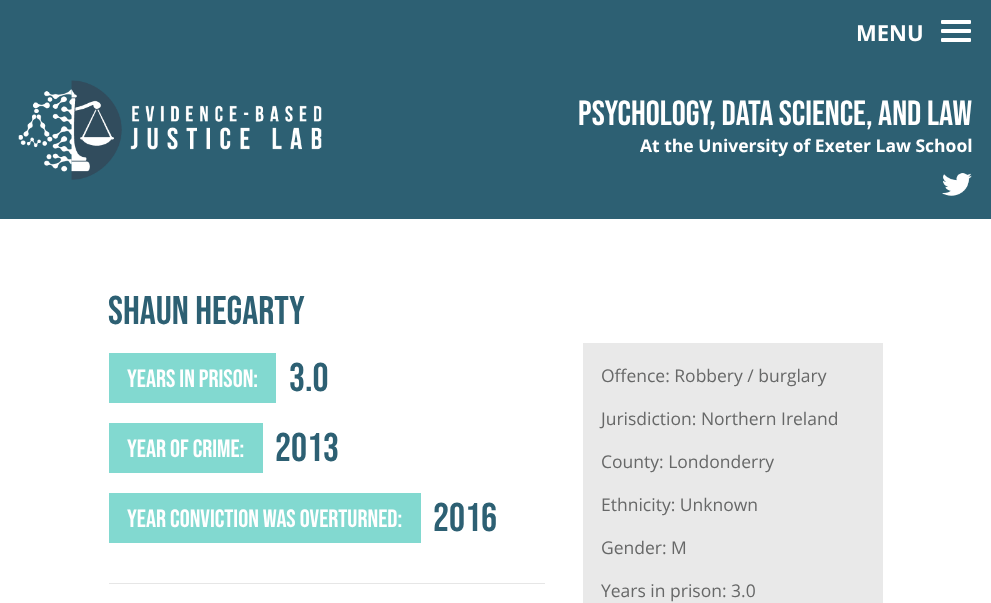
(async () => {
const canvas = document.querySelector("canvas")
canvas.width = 991
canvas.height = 603
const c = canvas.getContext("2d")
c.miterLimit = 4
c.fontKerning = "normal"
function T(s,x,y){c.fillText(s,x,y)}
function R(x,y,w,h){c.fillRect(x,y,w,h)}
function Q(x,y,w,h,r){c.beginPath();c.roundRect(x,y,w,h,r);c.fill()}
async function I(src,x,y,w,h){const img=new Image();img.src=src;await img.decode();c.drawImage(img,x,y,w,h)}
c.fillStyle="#2d6073"
R(0,0,991,603)
c.font="bold 22px Open Sans"
c.fillStyle="#fff"
T("MENU",856,41)
Q(941,20,30,4,1)
Q(941,29,30,4,1)
Q(941,38,30,4,1)
await I("1.png",18,80,304,100)
c.font="35px Bebas Neue"
T("Psychology, Data Science, and Law",578,125)
c.font="bold 17.5px Open Sans"
T("At the University of Exeter Law School",640,152)
await I("2.png",942,173,30,23)
R(0,219,991,384)
c.font="40px Bebas Neue"
c.fillStyle="#2d6073"
T("Shaun Hegarty",108,324)
c.fillStyle="#82d9d0"
R(109,353,167,50)
c.font="25px Bebas Neue"
c.fillStyle="#fff"
T("Years in prison:",127,387)
c.font="40px Bebas Neue"
c.fillStyle="#2d6073"
T("3.0",289,391)
c.fillStyle="#82d9d0"
R(109,423,154,50)
c.font="25px Bebas Neue"
c.fillStyle="#fff"
T("Year of crime:",127,457)
c.font="40px Bebas Neue"
c.fillStyle="#2d6073"
T("2013",275,461)
c.fillStyle="#82d9d0"
R(109,493,312,50)
c.font="25px Bebas Neue"
c.fillStyle="#fff"
T("Year conviction was overturned:",127,527)
c.font="40px Bebas Neue"
c.fillStyle="#2d6073"
T("2016",433,531)
c.fillStyle="#e6e6e6"
R(109,583,436,1)
c.fillStyle="#e9e9e9"
R(583,343,300,260)
c.font="17.5px Open Sans"
c.fillStyle="#676868"
T("Offence: Robbery / burglary",601,382)
T("Jurisdiction: Northern Ireland",601,425)
T("County: Londonderry",601,468)
T("Ethnicity: Unknown",601,511)
T("Gender: M",601,554)
T("Years in prison: 3.0",601,597)
})()
